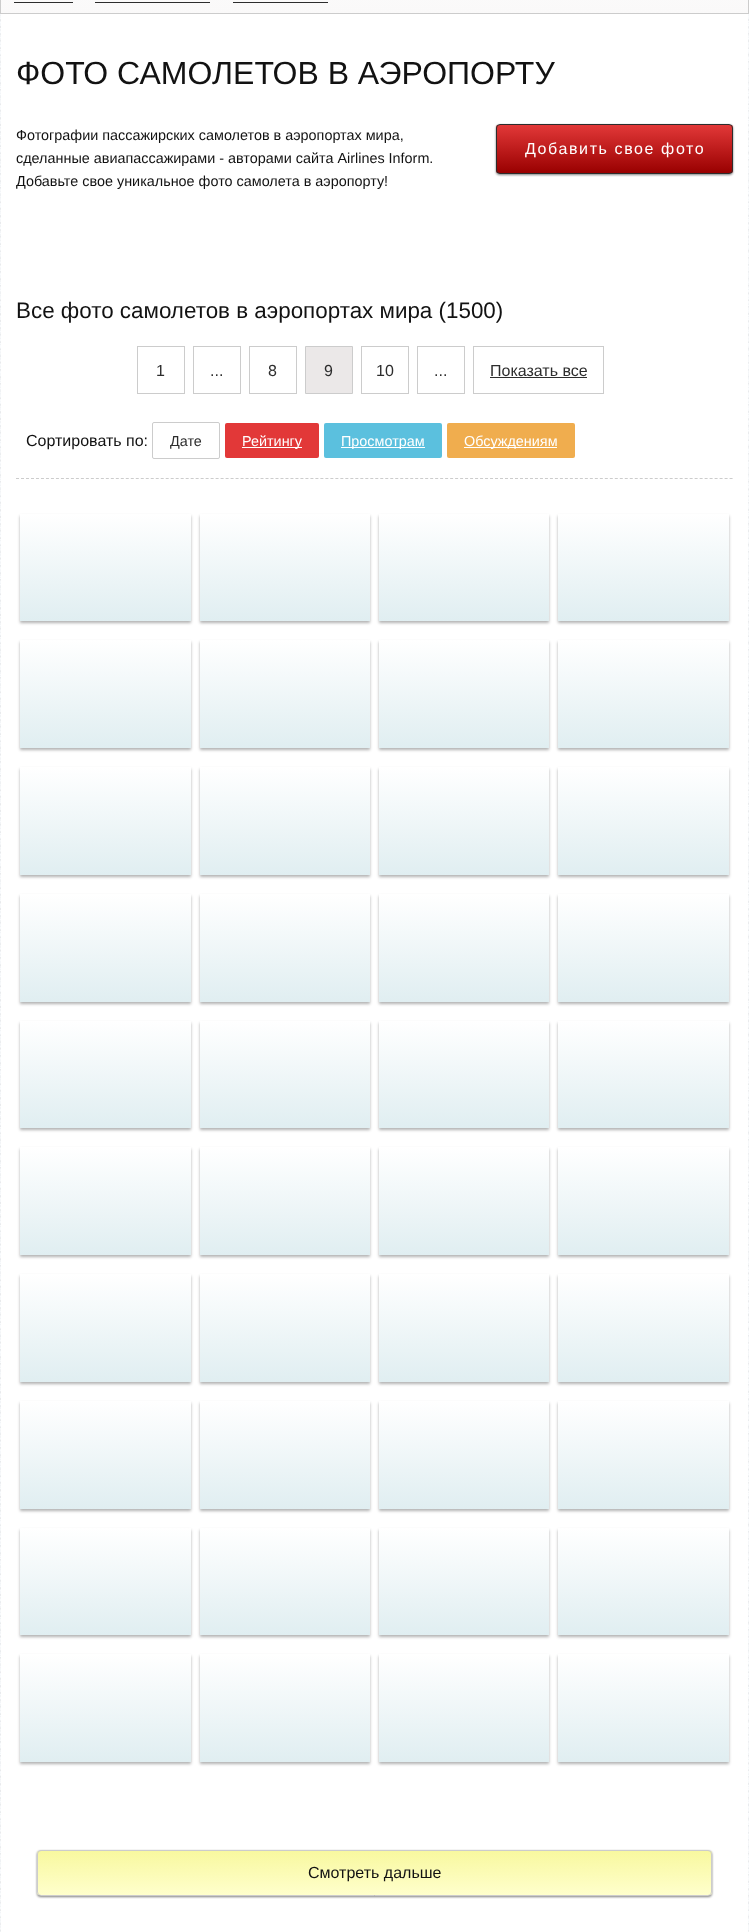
(async () => {
const canvas = document.querySelector("canvas")
canvas.width = 749
canvas.height = 1932
const c = canvas.getContext("2d")
c.miterLimit = 4
c.fontKerning = "normal"
function T(s,x,y){c.fillText(s,x,y)}
function R(x,y,w,h){c.fillRect(x,y,w,h)}
function Q(x,y,w,h,r){c.beginPath();c.roundRect(x,y,w,h,r);c.fill()}
async function I(src,x,y,w,h){const img=new Image();img.src=src;await img.decode();c.drawImage(img,x,y,w,h)}
let gradient, path
c.fillStyle="#fff"
R(0,0,749,1932)
await I("1.png",0,14,749,1918)
gradient = c.createLinearGradient(1,-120,1,14)
gradient.addColorStop(0,"#fff")
gradient.addColorStop(1,"#faf9f9")
c.fillStyle = gradient
R(1,0,747,13)
c.fillStyle="#ccc"
R(748,0,1,14)
R(0,0,1,14)
R(1,13,747,1)
c.fillStyle="#2d2d2d"
R(14,2,59,1)
R(95,2,115,1)
R(233,2,95,1)
c.fillStyle="#fff"
R(1,14,747,1918)
c.font="32px Liberation Sans"
c.fillStyle="#121212"
T("ФОТО САМОЛЕТОВ В АЭРОПОРТУ",16,84)
c.font="14.4px Liberation Sans"
T("Фотографии пассажирских самолетов в аэропортах мира,",16,140)
T("сделанные авиапассажирами - авторами сайта Airlines Inform.",16,163)
T("Добавьте свое уникальное фото самолета в аэропорту!",16,186)
c.fillStyle="#00000080"
c.filter="blur(1px)"
c.beginPath()
c.roundRect(496,125,237,50,4)
c.fill()
c.filter="none"
c.save()
c.beginPath()
c.roundRect(496,124,237,50,4)
c.clip()
gradient = c.createLinearGradient(497,125,497,173)
gradient.addColorStop(0,"#e23838")
gradient.addColorStop(1,"#900")
c.fillStyle = gradient
R(496,125,237,48)
c.restore()
c.beginPath()
c.roundRect(496.5,124.5,236,49,3.5)
c.strokeStyle="#2d2d2d"
c.stroke()
c.letterSpacing="1.6px"
c.font="16px Liberation Sans"
c.fillStyle="#fff"
T("Добавить свое фото",525,154)
c.letterSpacing="0px"
c.font="22.4px Liberation Sans"
c.fillStyle="#121212"
T("Все фото самолетов в аэропортах мира (1500)",16,318)
c.strokeStyle="#ccc"
c.strokeRect(137.5,346.5,47,47)
c.font="16px Liberation Sans"
c.fillStyle="#2d2d2d"
T("1",156,376)
c.strokeRect(193.5,346.5,47,47)
T("...",210,376)
c.strokeRect(249.5,346.5,47,47)
T("8",268,376)
c.fillStyle="#ebe8e8"
c.beginPath()
c.rect(305.5,346.5,47,47)
c.fill()
c.stroke()
c.fillStyle="#2d2d2d"
T("9",324,376)
c.strokeRect(361.5,346.5,47,47)
T("10",376,376)
c.strokeRect(417.5,346.5,47,47)
T("...",434,376)
c.strokeRect(473.5,346.5,130,47)
T("Показать все",490,376)
R(490,377,97,1)
path = new Path2D("M16 478.5h717")
c.setLineDash([3,1.99])
c.stroke(path)
c.fillStyle="#121212"
T("Сортировать по:",26,446)
c.beginPath()
c.roundRect(152.5,422.5,67,36,1.5)
c.setLineDash([])
c.stroke()
c.font="14.4px Liberation Sans"
c.fillStyle="#2d2d2d"
T("Дате",170,446)
c.fillStyle="#e23838"
Q(225,423,94,35,2)
c.fillStyle="#fff"
R(242,447,60,1)
T("Рейтингу",242,446)
c.fillStyle="#5bc0de"
Q(324,423,118,35,2)
c.fillStyle="#fff"
R(341,447,84,1)
T("Просмотрам",341,446)
c.fillStyle="#f0ad4e"
Q(447,423,128,35,2)
c.fillStyle="#fff"
R(464,447,93,1)
T("Обсуждениям",464,446)
c.fillStyle="#0000004d"
c.filter="blur(1.5px)"
c.beginPath()
c.rect(20,516,171,107)
c.fill()
c.filter="none"
gradient = c.createLinearGradient(20,514,20,621)
gradient.addColorStop(0,"#fff")
gradient.addColorStop(1,"#e0eef1")
c.fillStyle = gradient
R(20,514,171,107)
c.fillStyle="#0000004d"
c.filter="blur(1.5px)"
c.beginPath()
c.rect(200,516,170,107)
c.fill()
c.filter="none"
gradient = c.createLinearGradient(200,514,200,621)
gradient.addColorStop(0,"#fff")
gradient.addColorStop(1,"#e0eef1")
c.fillStyle = gradient
R(200,514,170,107)
c.fillStyle="#0000004d"
c.filter="blur(1.5px)"
c.beginPath()
c.rect(379,516,170,107)
c.fill()
c.filter="none"
gradient = c.createLinearGradient(379,514,379,621)
gradient.addColorStop(0,"#fff")
gradient.addColorStop(1,"#e0eef1")
c.fillStyle = gradient
R(379,514,170,107)
c.fillStyle="#0000004d"
c.filter="blur(1.5px)"
c.beginPath()
c.rect(558,516,171,107)
c.fill()
c.filter="none"
gradient = c.createLinearGradient(558,514,558,621)
gradient.addColorStop(0,"#fff")
gradient.addColorStop(1,"#e0eef1")
c.fillStyle = gradient
R(558,514,171,107)
c.fillStyle="#0000004d"
c.filter="blur(1.5px)"
c.beginPath()
c.rect(20,642,171,108)
c.fill()
c.filter="none"
gradient = c.createLinearGradient(20,640,20,748)
gradient.addColorStop(0,"#fff")
gradient.addColorStop(1,"#e0eef1")
c.fillStyle = gradient
R(20,640,171,108)
c.fillStyle="#0000004d"
c.filter="blur(1.5px)"
c.beginPath()
c.rect(200,642,170,108)
c.fill()
c.filter="none"
gradient = c.createLinearGradient(200,640,200,748)
gradient.addColorStop(0,"#fff")
gradient.addColorStop(1,"#e0eef1")
c.fillStyle = gradient
R(200,640,170,108)
c.fillStyle="#0000004d"
c.filter="blur(1.5px)"
c.beginPath()
c.rect(379,642,170,108)
c.fill()
c.filter="none"
gradient = c.createLinearGradient(379,640,379,748)
gradient.addColorStop(0,"#fff")
gradient.addColorStop(1,"#e0eef1")
c.fillStyle = gradient
R(379,640,170,108)
c.fillStyle="#0000004d"
c.filter="blur(1.5px)"
c.beginPath()
c.rect(558,642,171,108)
c.fill()
c.filter="none"
gradient = c.createLinearGradient(558,640,558,748)
gradient.addColorStop(0,"#fff")
gradient.addColorStop(1,"#e0eef1")
c.fillStyle = gradient
R(558,640,171,108)
c.fillStyle="#0000004d"
c.filter="blur(1.5px)"
c.beginPath()
c.rect(20,769,171,108)
c.fill()
c.filter="none"
gradient = c.createLinearGradient(20,767,20,875)
gradient.addColorStop(0,"#fff")
gradient.addColorStop(1,"#e0eef1")
c.fillStyle = gradient
R(20,767,171,108)
c.fillStyle="#0000004d"
c.filter="blur(1.5px)"
c.beginPath()
c.rect(200,769,170,108)
c.fill()
c.filter="none"
gradient = c.createLinearGradient(200,767,200,875)
gradient.addColorStop(0,"#fff")
gradient.addColorStop(1,"#e0eef1")
c.fillStyle = gradient
R(200,767,170,108)
c.fillStyle="#0000004d"
c.filter="blur(1.5px)"
c.beginPath()
c.rect(379,769,170,108)
c.fill()
c.filter="none"
gradient = c.createLinearGradient(379,767,379,875)
gradient.addColorStop(0,"#fff")
gradient.addColorStop(1,"#e0eef1")
c.fillStyle = gradient
R(379,767,170,108)
c.fillStyle="#0000004d"
c.filter="blur(1.5px)"
c.beginPath()
c.rect(558,769,171,108)
c.fill()
c.filter="none"
gradient = c.createLinearGradient(558,767,558,875)
gradient.addColorStop(0,"#fff")
gradient.addColorStop(1,"#e0eef1")
c.fillStyle = gradient
R(558,767,171,108)
c.fillStyle="#0000004d"
c.filter="blur(1.5px)"
c.beginPath()
c.rect(20,896,171,108)
c.fill()
c.filter="none"
gradient = c.createLinearGradient(20,894,20,1002)
gradient.addColorStop(0,"#fff")
gradient.addColorStop(1,"#e0eef1")
c.fillStyle = gradient
R(20,894,171,108)
c.fillStyle="#0000004d"
c.filter="blur(1.5px)"
c.beginPath()
c.rect(200,896,170,108)
c.fill()
c.filter="none"
gradient = c.createLinearGradient(200,894,200,1002)
gradient.addColorStop(0,"#fff")
gradient.addColorStop(1,"#e0eef1")
c.fillStyle = gradient
R(200,894,170,108)
c.fillStyle="#0000004d"
c.filter="blur(1.5px)"
c.beginPath()
c.rect(379,896,170,108)
c.fill()
c.filter="none"
gradient = c.createLinearGradient(379,894,379,1002)
gradient.addColorStop(0,"#fff")
gradient.addColorStop(1,"#e0eef1")
c.fillStyle = gradient
R(379,894,170,108)
c.fillStyle="#0000004d"
c.filter="blur(1.5px)"
c.beginPath()
c.rect(558,896,171,108)
c.fill()
c.filter="none"
gradient = c.createLinearGradient(558,894,558,1002)
gradient.addColorStop(0,"#fff")
gradient.addColorStop(1,"#e0eef1")
c.fillStyle = gradient
R(558,894,171,108)
c.fillStyle="#0000004d"
c.filter="blur(1.5px)"
c.beginPath()
c.rect(20,1023,171,107)
c.fill()
c.filter="none"
gradient = c.createLinearGradient(20,1021,20,1128)
gradient.addColorStop(0,"#fff")
gradient.addColorStop(1,"#e0eef1")
c.fillStyle = gradient
R(20,1021,171,107)
c.fillStyle="#0000004d"
c.filter="blur(1.5px)"
c.beginPath()
c.rect(200,1023,170,107)
c.fill()
c.filter="none"
gradient = c.createLinearGradient(200,1021,200,1128)
gradient.addColorStop(0,"#fff")
gradient.addColorStop(1,"#e0eef1")
c.fillStyle = gradient
R(200,1021,170,107)
c.fillStyle="#0000004d"
c.filter="blur(1.5px)"
c.beginPath()
c.rect(379,1023,170,107)
c.fill()
c.filter="none"
gradient = c.createLinearGradient(379,1021,379,1128)
gradient.addColorStop(0,"#fff")
gradient.addColorStop(1,"#e0eef1")
c.fillStyle = gradient
R(379,1021,170,107)
c.fillStyle="#0000004d"
c.filter="blur(1.5px)"
c.beginPath()
c.rect(558,1023,171,107)
c.fill()
c.filter="none"
gradient = c.createLinearGradient(558,1021,558,1128)
gradient.addColorStop(0,"#fff")
gradient.addColorStop(1,"#e0eef1")
c.fillStyle = gradient
R(558,1021,171,107)
c.fillStyle="#0000004d"
c.filter="blur(1.5px)"
c.beginPath()
c.rect(20,1149,171,108)
c.fill()
c.filter="none"
gradient = c.createLinearGradient(20,1147,20,1255)
gradient.addColorStop(0,"#fff")
gradient.addColorStop(1,"#e0eef1")
c.fillStyle = gradient
R(20,1147,171,108)
c.fillStyle="#0000004d"
c.filter="blur(1.5px)"
c.beginPath()
c.rect(200,1149,170,108)
c.fill()
c.filter="none"
gradient = c.createLinearGradient(200,1147,200,1255)
gradient.addColorStop(0,"#fff")
gradient.addColorStop(1,"#e0eef1")
c.fillStyle = gradient
R(200,1147,170,108)
c.fillStyle="#0000004d"
c.filter="blur(1.5px)"
c.beginPath()
c.rect(379,1149,170,108)
c.fill()
c.filter="none"
gradient = c.createLinearGradient(379,1147,379,1255)
gradient.addColorStop(0,"#fff")
gradient.addColorStop(1,"#e0eef1")
c.fillStyle = gradient
R(379,1147,170,108)
c.fillStyle="#0000004d"
c.filter="blur(1.5px)"
c.beginPath()
c.rect(558,1149,171,108)
c.fill()
c.filter="none"
gradient = c.createLinearGradient(558,1147,558,1255)
gradient.addColorStop(0,"#fff")
gradient.addColorStop(1,"#e0eef1")
c.fillStyle = gradient
R(558,1147,171,108)
c.fillStyle="#0000004d"
c.filter="blur(1.5px)"
c.beginPath()
c.rect(20,1276,171,108)
c.fill()
c.filter="none"
gradient = c.createLinearGradient(20,1274,20,1382)
gradient.addColorStop(0,"#fff")
gradient.addColorStop(1,"#e0eef1")
c.fillStyle = gradient
R(20,1274,171,108)
c.fillStyle="#0000004d"
c.filter="blur(1.5px)"
c.beginPath()
c.rect(200,1276,170,108)
c.fill()
c.filter="none"
gradient = c.createLinearGradient(200,1274,200,1382)
gradient.addColorStop(0,"#fff")
gradient.addColorStop(1,"#e0eef1")
c.fillStyle = gradient
R(200,1274,170,108)
c.fillStyle="#0000004d"
c.filter="blur(1.5px)"
c.beginPath()
c.rect(379,1276,170,108)
c.fill()
c.filter="none"
gradient = c.createLinearGradient(379,1274,379,1382)
gradient.addColorStop(0,"#fff")
gradient.addColorStop(1,"#e0eef1")
c.fillStyle = gradient
R(379,1274,170,108)
c.fillStyle="#0000004d"
c.filter="blur(1.5px)"
c.beginPath()
c.rect(558,1276,171,108)
c.fill()
c.filter="none"
gradient = c.createLinearGradient(558,1274,558,1382)
gradient.addColorStop(0,"#fff")
gradient.addColorStop(1,"#e0eef1")
c.fillStyle = gradient
R(558,1274,171,108)
c.fillStyle="#0000004d"
c.filter="blur(1.5px)"
c.beginPath()
c.rect(20,1403,171,108)
c.fill()
c.filter="none"
gradient = c.createLinearGradient(20,1401,20,1509)
gradient.addColorStop(0,"#fff")
gradient.addColorStop(1,"#e0eef1")
c.fillStyle = gradient
R(20,1401,171,108)
c.fillStyle="#0000004d"
c.filter="blur(1.5px)"
c.beginPath()
c.rect(200,1403,170,108)
c.fill()
c.filter="none"
gradient = c.createLinearGradient(200,1401,200,1509)
gradient.addColorStop(0,"#fff")
gradient.addColorStop(1,"#e0eef1")
c.fillStyle = gradient
R(200,1401,170,108)
c.fillStyle="#0000004d"
c.filter="blur(1.5px)"
c.beginPath()
c.rect(379,1403,170,108)
c.fill()
c.filter="none"
gradient = c.createLinearGradient(379,1401,379,1509)
gradient.addColorStop(0,"#fff")
gradient.addColorStop(1,"#e0eef1")
c.fillStyle = gradient
R(379,1401,170,108)
c.fillStyle="#0000004d"
c.filter="blur(1.5px)"
c.beginPath()
c.rect(558,1403,171,108)
c.fill()
c.filter="none"
gradient = c.createLinearGradient(558,1401,558,1509)
gradient.addColorStop(0,"#fff")
gradient.addColorStop(1,"#e0eef1")
c.fillStyle = gradient
R(558,1401,171,108)
c.fillStyle="#0000004d"
c.filter="blur(1.5px)"
c.beginPath()
c.rect(20,1530,171,107)
c.fill()
c.filter="none"
gradient = c.createLinearGradient(20,1528,20,1635)
gradient.addColorStop(0,"#fff")
gradient.addColorStop(1,"#e0eef1")
c.fillStyle = gradient
R(20,1528,171,107)
c.fillStyle="#0000004d"
c.filter="blur(1.5px)"
c.beginPath()
c.rect(200,1530,170,107)
c.fill()
c.filter="none"
gradient = c.createLinearGradient(200,1528,200,1635)
gradient.addColorStop(0,"#fff")
gradient.addColorStop(1,"#e0eef1")
c.fillStyle = gradient
R(200,1528,170,107)
c.fillStyle="#0000004d"
c.filter="blur(1.5px)"
c.beginPath()
c.rect(379,1530,170,107)
c.fill()
c.filter="none"
gradient = c.createLinearGradient(379,1528,379,1635)
gradient.addColorStop(0,"#fff")
gradient.addColorStop(1,"#e0eef1")
c.fillStyle = gradient
R(379,1528,170,107)
c.fillStyle="#0000004d"
c.filter="blur(1.5px)"
c.beginPath()
c.rect(558,1530,171,107)
c.fill()
c.filter="none"
gradient = c.createLinearGradient(558,1528,558,1635)
gradient.addColorStop(0,"#fff")
gradient.addColorStop(1,"#e0eef1")
c.fillStyle = gradient
R(558,1528,171,107)
c.fillStyle="#0000004d"
c.filter="blur(1.5px)"
c.beginPath()
c.rect(20,1656,171,108)
c.fill()
c.filter="none"
gradient = c.createLinearGradient(20,1654,20,1762)
gradient.addColorStop(0,"#fff")
gradient.addColorStop(1,"#e0eef1")
c.fillStyle = gradient
R(20,1654,171,108)
c.fillStyle="#0000004d"
c.filter="blur(1.5px)"
c.beginPath()
c.rect(200,1656,170,108)
c.fill()
c.filter="none"
gradient = c.createLinearGradient(200,1654,200,1762)
gradient.addColorStop(0,"#fff")
gradient.addColorStop(1,"#e0eef1")
c.fillStyle = gradient
R(200,1654,170,108)
c.fillStyle="#0000004d"
c.filter="blur(1.5px)"
c.beginPath()
c.rect(379,1656,170,108)
c.fill()
c.filter="none"
gradient = c.createLinearGradient(379,1654,379,1762)
gradient.addColorStop(0,"#fff")
gradient.addColorStop(1,"#e0eef1")
c.fillStyle = gradient
R(379,1654,170,108)
c.fillStyle="#0000004d"
c.filter="blur(1.5px)"
c.beginPath()
c.rect(558,1656,171,108)
c.fill()
c.filter="none"
gradient = c.createLinearGradient(558,1654,558,1762)
gradient.addColorStop(0,"#fff")
gradient.addColorStop(1,"#e0eef1")
c.fillStyle = gradient
R(558,1654,171,108)
c.fillStyle="#00000080"
c.filter="blur(1px)"
c.beginPath()
c.roundRect(37,1851,675,46,4)
c.fill()
c.filter="none"
c.save()
c.beginPath()
c.roundRect(37,1850,675,46,4)
c.clip()
gradient = c.createLinearGradient(38,1851,38,1895)
gradient.addColorStop(0,"#f8f89f")
gradient.addColorStop(1,"#ffc")
c.fillStyle = gradient
R(37,1851,675,44)
c.restore()
c.beginPath()
c.roundRect(37.5,1850.5,674,45,3.5)
c.stroke()
c.font="16px Liberation Sans"
c.fillStyle="#121212"
T("Смотреть дальше",308,1878)
})()
